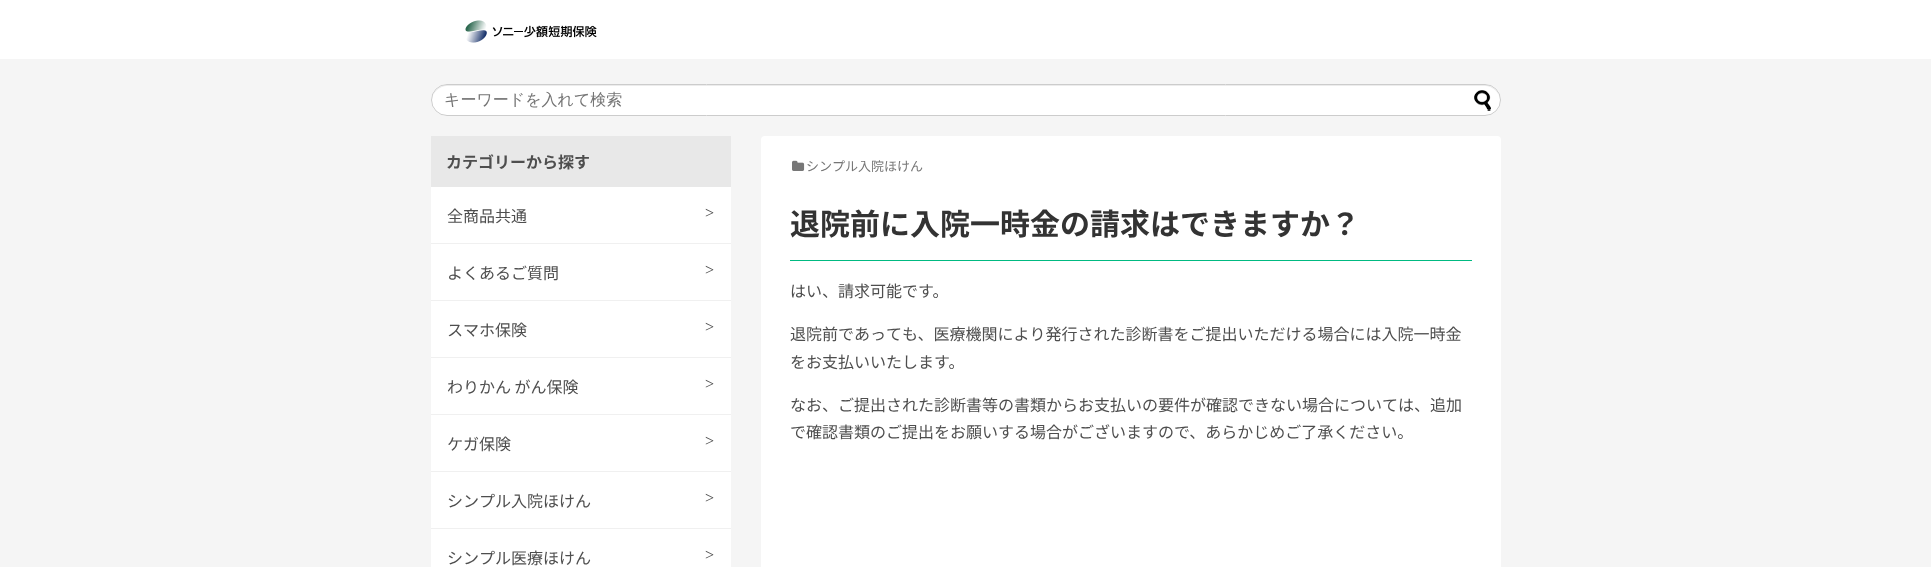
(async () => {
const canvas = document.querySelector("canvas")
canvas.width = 1931
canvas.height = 567
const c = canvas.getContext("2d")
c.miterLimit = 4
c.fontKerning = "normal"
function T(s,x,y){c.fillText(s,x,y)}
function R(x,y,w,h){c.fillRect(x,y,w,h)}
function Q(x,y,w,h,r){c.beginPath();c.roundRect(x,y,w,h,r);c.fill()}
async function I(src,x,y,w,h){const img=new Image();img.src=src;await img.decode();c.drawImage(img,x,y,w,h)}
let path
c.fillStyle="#f5f5f5"
R(0,0,1931,567)
c.fillStyle="#fff"
R(0,0,1931,59)
await I("1.png",465,20,132,23)
Q(431,84,1070,32,16)
c.fillStyle="#ececec"
path = new Path2D("M447 86h1038c8 0 15 7 15 15c0-9-7-16-15-16h-1038c-8 0-15 7-15 16c0-8 7-15 15-15z")
c.fill(path)
c.beginPath()
c.roundRect(431.5,84.5,1069,31,15.5)
c.strokeStyle="#ccc"
c.stroke()
c.font="500 16px WenQuanYi Zen Hei"
c.fillStyle="#757575"
T("キーワードを入れて検索",444,105)
await I("2.png",1474,90,17,21)
c.fillStyle="#fff"
R(431,187,300,380)
c.fillStyle="#e8e8e8"
R(431,136,300,51)
c.font="bold 16px Noto Sans JP"
c.fillStyle="#4e4e4e"
T("カテゴリーから探す",446,168)
c.fillStyle="#f0f0f0"
R(431,243,300,1)
c.font="16px Noto Sans JP"
c.fillStyle="#4e4e4e"
T("全商品共通",447,222)
c.font="16px Liberation Serif"
T(">",705,218)
c.fillStyle="#f0f0f0"
R(431,300,300,1)
c.font="16px Noto Sans JP"
c.fillStyle="#4e4e4e"
T("よくあるご質問",447,279)
c.font="16px Liberation Serif"
T(">",705,275)
c.fillStyle="#f0f0f0"
R(431,357,300,1)
c.font="16px Noto Sans JP"
c.fillStyle="#4e4e4e"
T("スマホ保険",447,336)
c.font="16px Liberation Serif"
T(">",705,332)
c.fillStyle="#f0f0f0"
R(431,414,300,1)
c.font="16px Noto Sans JP"
c.fillStyle="#4e4e4e"
T("わりかん がん保険",447,393)
c.font="16px Liberation Serif"
T(">",705,389)
c.fillStyle="#f0f0f0"
R(431,471,300,1)
c.font="16px Noto Sans JP"
c.fillStyle="#4e4e4e"
T("ケガ保険",447,450)
c.font="16px Liberation Serif"
T(">",705,446)
c.fillStyle="#f0f0f0"
R(431,528,300,1)
c.font="16px Noto Sans JP"
c.fillStyle="#4e4e4e"
T("シンプル入院ほけん",447,507)
c.font="16px Liberation Serif"
T(">",705,503)
c.font="16px Noto Sans JP"
T("シンプル医療ほけん",447,564)
c.font="16px Liberation Serif"
T(">",705,560)
c.fillStyle="#fff"
Q(761,136,740,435,4)
await I("3.png",792,160,13,11)
c.font="13px Noto Sans JP"
c.fillStyle="#757575"
T("シンプル入院ほけん",806,171)
c.font="bold 30px Noto Sans JP"
c.fillStyle="#333"
T("退院前に入院一時金の請求はできますか？",790,235)
c.fillStyle="#00ba81"
R(790,260,682,1)
c.font="16px Noto Sans JP"
c.fillStyle="#4e4e4e"
T("はい、請求可能です。",790,297)
T("退院前であっても、医療機関により発行された診断書をご提出いただける場合には入院一時金",790,340)
T("をお支払いいたします。",790,368)
T("なお、ご提出された診断書等の書類からお支払いの要件が確認できない場合については、追加",790,411)
T("で確認書類のご提出をお願いする場合がございますので、あらかじめご了承ください。",790,438)
})()
